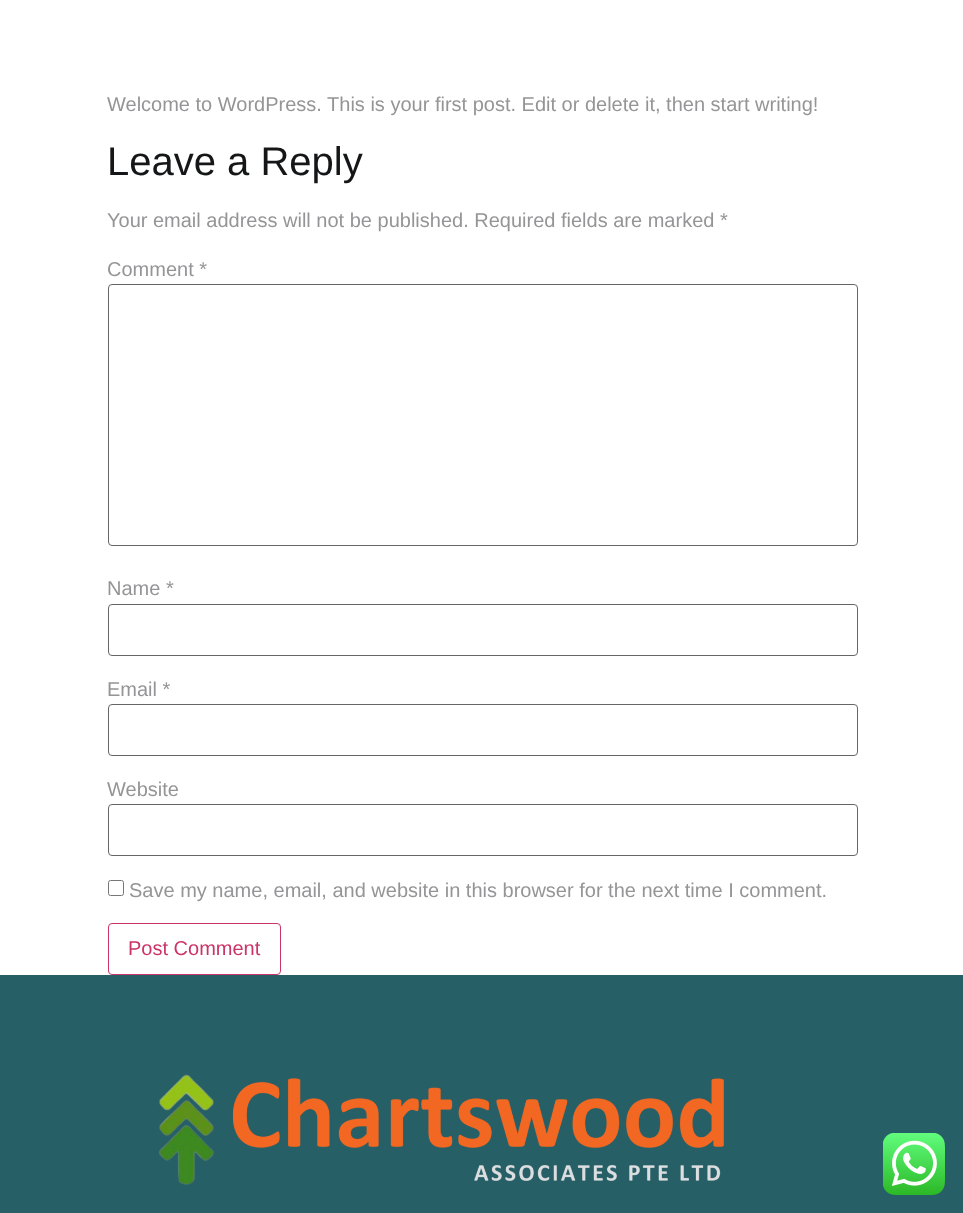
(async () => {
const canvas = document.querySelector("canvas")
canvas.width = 963
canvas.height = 1213
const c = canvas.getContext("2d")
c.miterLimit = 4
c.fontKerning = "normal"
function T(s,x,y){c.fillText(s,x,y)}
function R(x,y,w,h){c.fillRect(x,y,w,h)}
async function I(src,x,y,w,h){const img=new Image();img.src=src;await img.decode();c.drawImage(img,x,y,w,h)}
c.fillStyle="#fff"
R(0,0,963,1213)
c.font="20px Liberation Sans"
c.fillStyle="#959597"
T("Welcome to WordPress. This is your first post. Edit or delete it, then start writing!",107,111)
c.font="40px Liberation Sans"
c.fillStyle="#151618"
T("Leave a Reply",107,175)
c.font="20px Liberation Sans"
c.fillStyle="#959597"
T("Your email address will not be published. Required fields are marked *",107,227)
T("Comment *",107,276)
c.beginPath()
c.roundRect(108.5,284.5,749,261,3.5)
c.strokeStyle="#666"
c.stroke()
T("Name *",107,595)
c.beginPath()
c.roundRect(108.5,604.5,749,51,3.5)
c.stroke()
T("Email *",107,696)
c.beginPath()
c.roundRect(108.5,704.5,749,51,3.5)
c.stroke()
T("Website",107,796)
c.beginPath()
c.roundRect(108.5,804.5,749,51,3.5)
c.stroke()
c.beginPath()
c.roundRect(108.5,880.5,15,15,2)
c.strokeStyle="#767676"
c.stroke()
T("Save my name, email, and website in this browser for the next time I comment.",129,897)
c.beginPath()
c.roundRect(108.5,923.5,172,51,3.5)
c.strokeStyle="#c36"
c.stroke()
c.fillStyle="#c36"
T("Post Comment",128,955)
c.fillStyle="#275f66"
R(0,975,963,238)
await I("1.png",159,1074,565,111)
await I("2.png",883,1133,62,62)
})()
